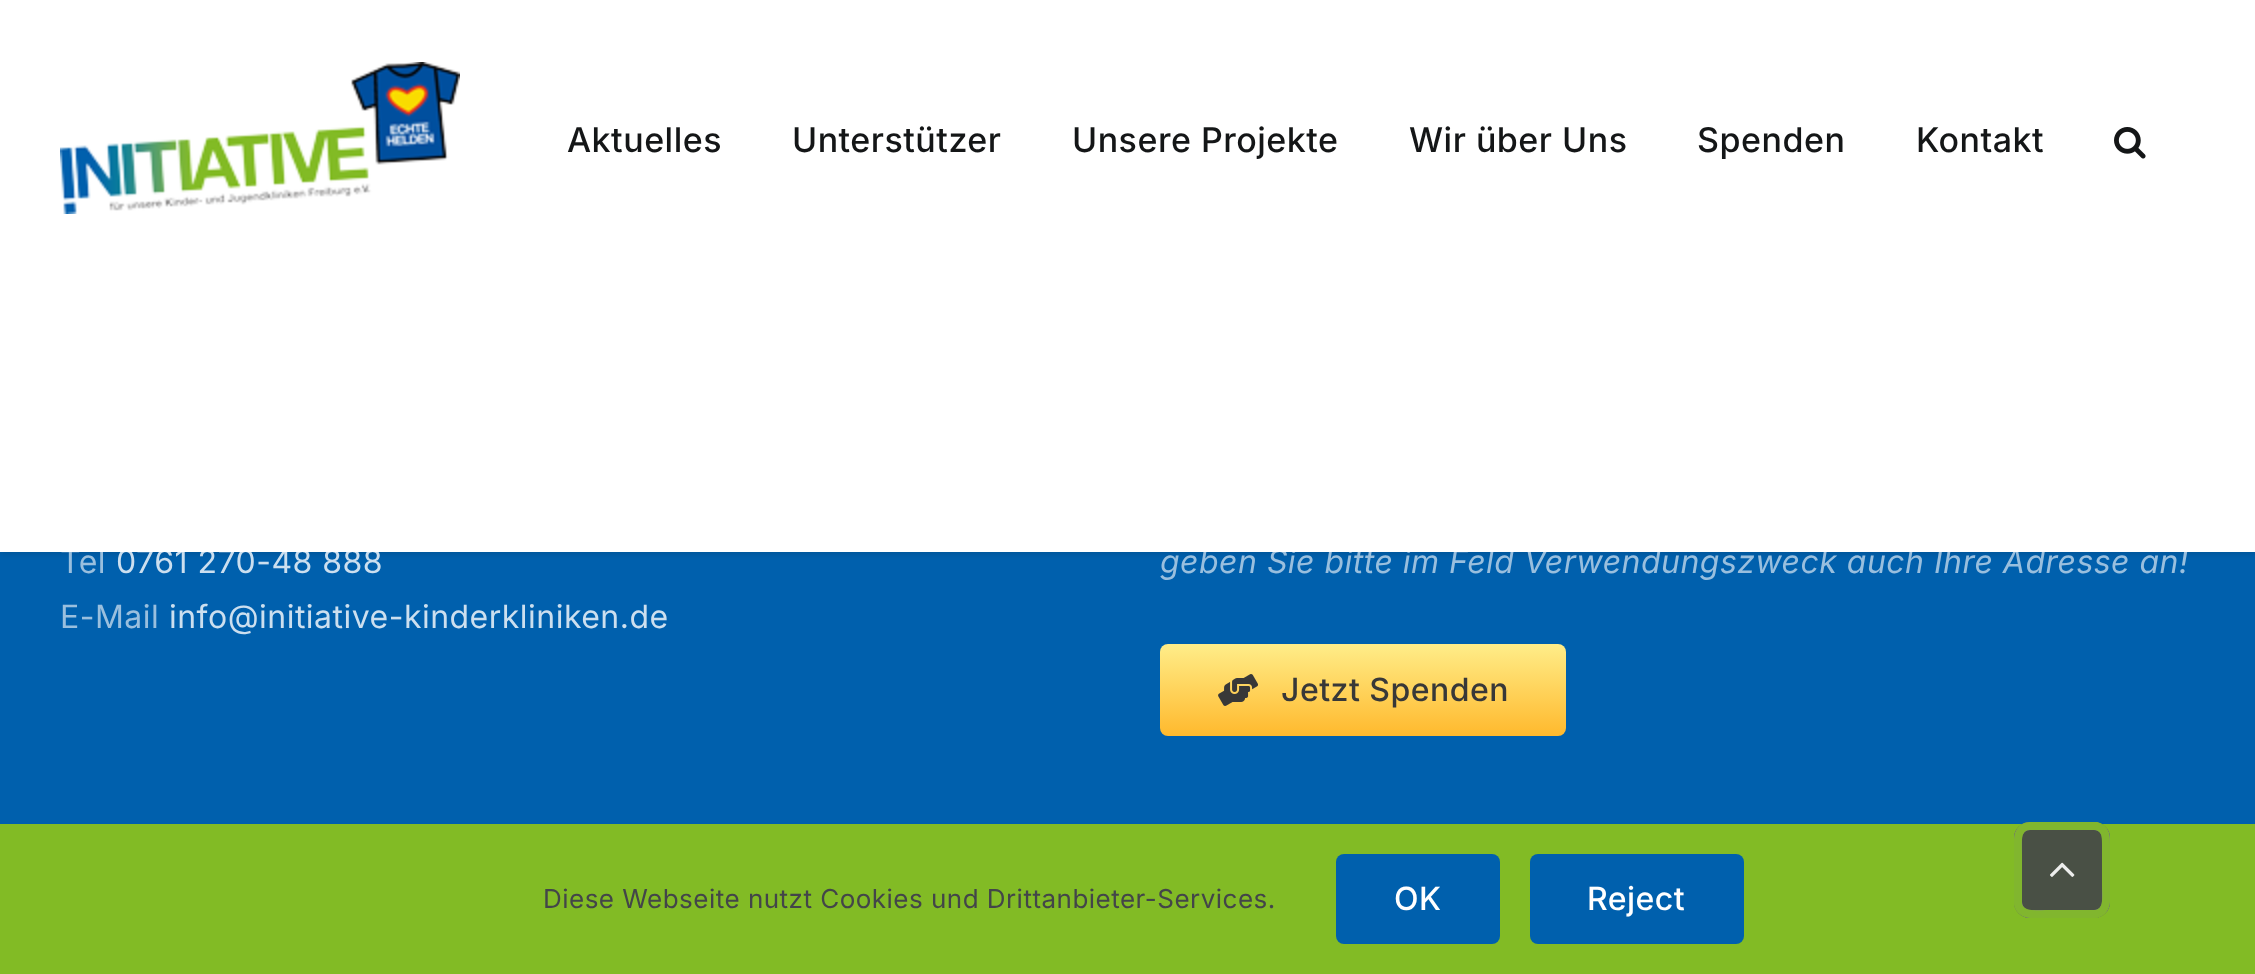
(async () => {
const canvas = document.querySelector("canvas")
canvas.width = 2255
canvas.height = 974
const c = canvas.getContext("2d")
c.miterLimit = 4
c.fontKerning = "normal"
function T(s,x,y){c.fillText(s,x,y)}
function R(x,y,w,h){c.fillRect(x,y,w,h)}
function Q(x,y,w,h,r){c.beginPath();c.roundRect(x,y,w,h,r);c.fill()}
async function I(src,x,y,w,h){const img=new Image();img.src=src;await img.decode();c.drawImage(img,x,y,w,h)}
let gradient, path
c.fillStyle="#0060ad"
R(0,0,2255,974)
c.fillStyle="#0000001f"
c.filter="blur(3px)"
c.beginPath()
c.rect(0,2,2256,552)
c.fill()
c.filter="none"
c.letterSpacing="0.48px"
c.font="32px Inter"
c.fillStyle="#99bfde"
T("Tel",60,573)
c.fillStyle="#ccdfef"
T("0761 270-48 888",116,573)
c.font="italic 32px Inter"
c.fillStyle="#99bfde"
T("geben Sie bitte im Feld Verwendungszweck auch Ihre Adresse an!",1160,573)
c.fillStyle="#fff"
R(0,0,2255,552)
await I("1.png",60,62,400,152)
c.letterSpacing="0.5px"
c.font="500 34px Inter"
c.fillStyle="#141617"
T("Aktuelles",567,152)
T("Unterstützer",792,152)
T("Unsere Projekte",1072,152)
T("Wir über Uns",1409,152)
T("Spenden",1697,152)
T("Kontakt",1916,152)
await I("2.png",2114,127,32,32)
c.letterSpacing="0.48px"
c.font="32px Inter"
c.fillStyle="#99bfde"
T("E-Mail",60,628)
c.fillStyle="#ccdfef"
T("info@initiative-kinderkliniken.de",169,628)
gradient = c.createLinearGradient(1363,644,1363,736)
gradient.addColorStop(0,"#ffed89")
gradient.addColorStop(1,"#ffb92d")
c.fillStyle = gradient
Q(1160,644,406,92,8)
await I("3.png",1218,674,40,32)
c.font="500 32px Inter"
c.fillStyle="#383838"
T("Jetzt Spenden",1281,701)
c.fillStyle="#82bb25"
R(0,824,2255,150)
c.font="26px Inter"
c.fillStyle="#434549"
T("Diese Webseite nutzt Cookies und Drittanbieter-Services.",543,908)
c.fillStyle="#0060ad"
Q(1336,854,164,90,8)
c.font="500 32px Inter"
c.fillStyle="#fff"
T("OK",1394,910)
c.fillStyle="#0060ad"
Q(1530,854,214,90,8)
c.fillStyle="#fff"
T("Reject",1587,910)
c.fillStyle="#434549e6"
Q(2014,822,96,96,16)
c.beginPath()
c.roundRect(2018,826,88,88,12)
c.strokeStyle="#85888ee6"
c.lineWidth=8
c.stroke()
c.save()
c.beginPath()
c.rect(2014,822,96,96)
c.clip()
path = new Path2D("M2030 826h66.5c10 2.5 9.5 12 9.5 20v40c0 9 3 25-9.5 28h-50.5c-9 0-25 3-28-9.5v-50.5c0-9.5-3-28 12-28")
c.strokeStyle="#82bb25e6"
c.stroke(path)
c.restore()
await I("4.png",2050,862,25,15)
})()
